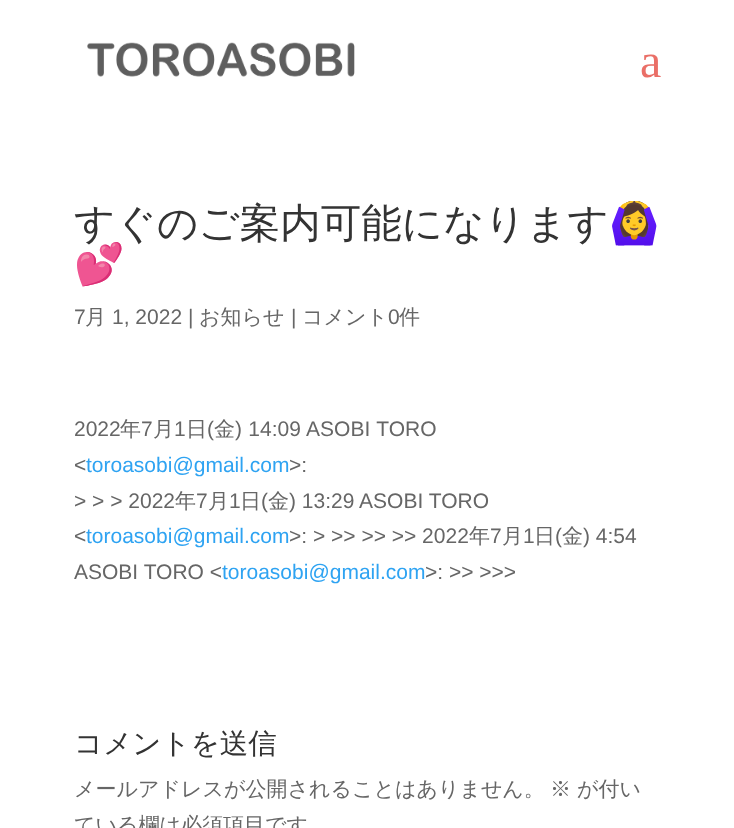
(async () => {
const canvas = document.querySelector("canvas")
canvas.width = 734
canvas.height = 828
const c = canvas.getContext("2d")
c.miterLimit = 4
c.fontKerning = "normal"
function T(s,x,y){c.fillText(s,x,y)}
function R(x,y,w,h){c.fillRect(x,y,w,h)}
async function I(src,x,y,w,h){const img=new Image();img.src=src;await img.decode();c.drawImage(img,x,y,w,h)}
c.fillStyle="#fff"
R(0,0,734,828)
await I("1.png",87,42,268,35)
c.font="48px Liberation Serif"
c.fillStyle="#ea6f67"
T("a",640,77)
c.font="500 40.5px WenQuanYi Zen Hei"
c.fillStyle="#333"
T("すぐのご案内可能になります",74,237)
c.font="40.5px Noto Color Emoji"
T("🙆‍♀️",609,237)
T("💕",74,278)
c.font="21px Liberation Sans"
c.fillStyle="#666"
T("7",74,324)
c.font="500 21px WenQuanYi Zen Hei"
T("月",85,324)
c.font="21px Liberation Sans"
T("1, 2022 |",112,324)
c.font="500 21px WenQuanYi Zen Hei"
T("お知らせ",199,324)
c.font="21px Liberation Sans"
T("|",291,324)
c.font="500 21px WenQuanYi Zen Hei"
T("コメント",302,324)
c.font="21px Liberation Sans"
T("0",388,324)
c.font="500 21px WenQuanYi Zen Hei"
T("件",399,324)
c.font="21px Liberation Sans"
T("2022",74,436)
c.font="500 21px WenQuanYi Zen Hei"
T("年",120,436)
c.font="21px Liberation Sans"
T("7",141,436)
c.font="500 21px WenQuanYi Zen Hei"
T("月",153,436)
c.font="21px Liberation Sans"
T("1",174,436)
c.font="500 21px WenQuanYi Zen Hei"
T("日",186,436)
c.font="21px Liberation Sans"
T("(",207,436)
c.font="500 21px WenQuanYi Zen Hei"
T("金",214,436)
c.wordSpacing="0.5px"
c.font="21px Liberation Sans"
T(") 14:09 ASOBI TORO",235,436)
c.wordSpacing="0px"
T("<",74,472)
c.fillStyle="#2ea3f2"
T("toroasobi@gmail.com",86,472)
c.fillStyle="#666"
T(">:",289,472)
T("> > > 2022",74,508)
c.font="500 21px WenQuanYi Zen Hei"
T("年",175,508)
c.font="21px Liberation Sans"
T("7",196,508)
c.font="500 21px WenQuanYi Zen Hei"
T("月",208,508)
c.font="21px Liberation Sans"
T("1",229,508)
c.font="500 21px WenQuanYi Zen Hei"
T("日",240,508)
c.font="21px Liberation Sans"
T("(",261,508)
c.font="500 21px WenQuanYi Zen Hei"
T("金",268,508)
c.font="21px Liberation Sans"
T(") 13:29 ASOBI TORO",289,508)
T("<",74,543)
c.fillStyle="#2ea3f2"
T("toroasobi@gmail.com",86,543)
c.fillStyle="#666"
T(">: > >> >> >> 2022",289,543)
c.font="500 21px WenQuanYi Zen Hei"
T("年",469,543)
c.font="21px Liberation Sans"
T("7",490,543)
c.font="500 21px WenQuanYi Zen Hei"
T("月",502,543)
c.font="21px Liberation Sans"
T("1",523,543)
c.font="500 21px WenQuanYi Zen Hei"
T("日",534,543)
c.font="21px Liberation Sans"
T("(",555,543)
c.font="500 21px WenQuanYi Zen Hei"
T("金",562,543)
c.font="21px Liberation Sans"
T(") 4:54",583,543)
T("ASOBI TORO <",74,579)
c.fillStyle="#2ea3f2"
T("toroasobi@gmail.com",222,579)
c.fillStyle="#666"
T(">: >> >>>",425,579)
c.font="500 28.5px WenQuanYi Zen Hei"
c.fillStyle="#333"
T("コメントを送信",74,753)
c.font="500 21px WenQuanYi Zen Hei"
c.fillStyle="#666"
T("メールアドレスが公開されることはありません。",74,796)
T("※",550,796)
T("が付い",577,796)
T("ている欄は必須項目です",74,832)
})()
